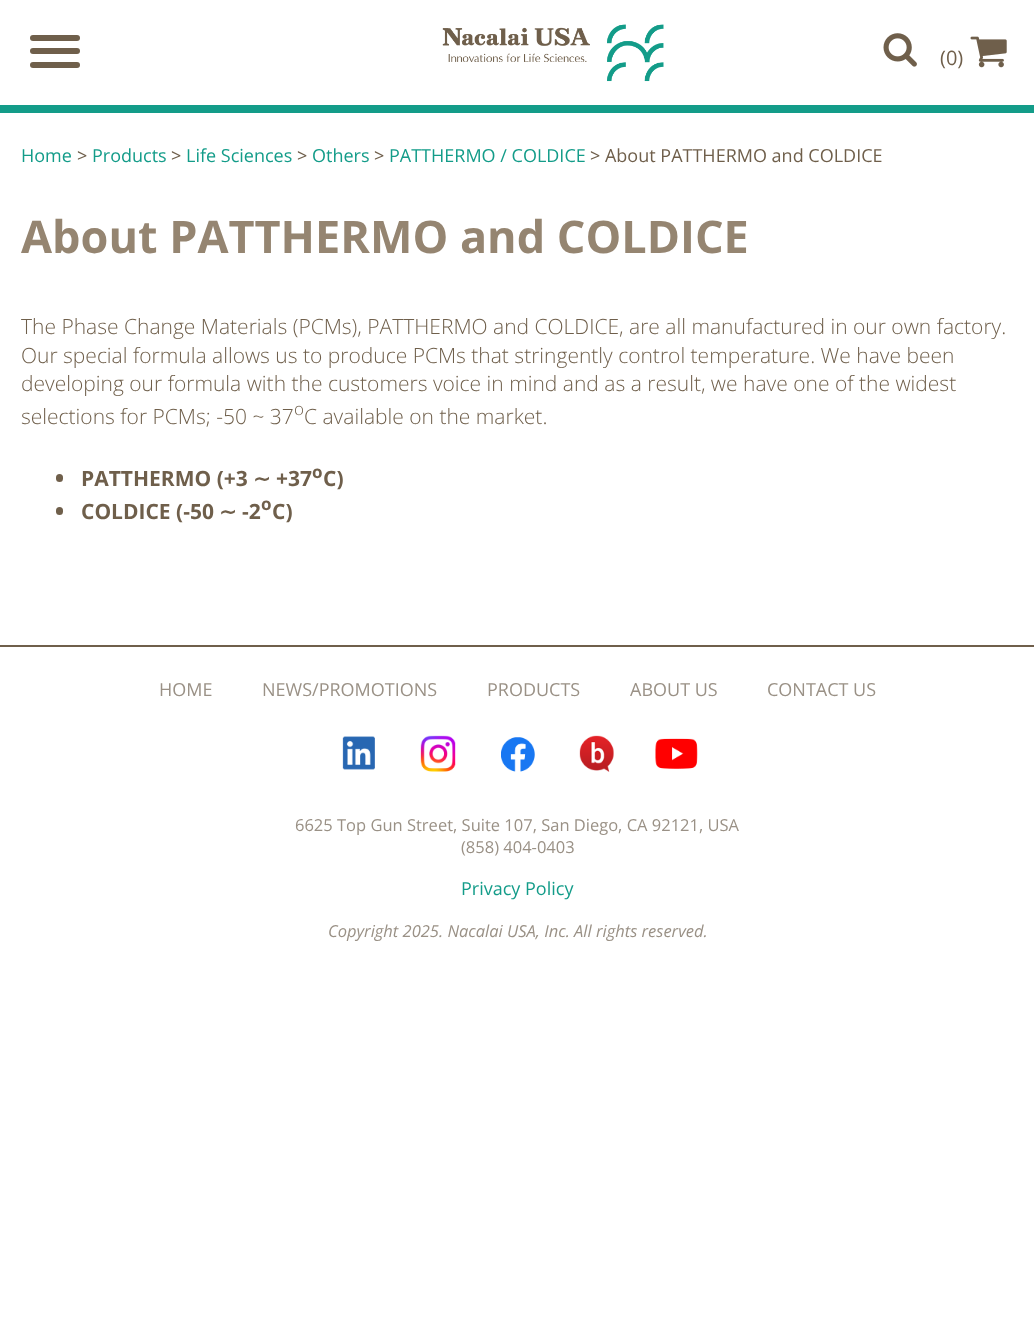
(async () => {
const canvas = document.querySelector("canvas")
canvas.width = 1034
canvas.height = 1331
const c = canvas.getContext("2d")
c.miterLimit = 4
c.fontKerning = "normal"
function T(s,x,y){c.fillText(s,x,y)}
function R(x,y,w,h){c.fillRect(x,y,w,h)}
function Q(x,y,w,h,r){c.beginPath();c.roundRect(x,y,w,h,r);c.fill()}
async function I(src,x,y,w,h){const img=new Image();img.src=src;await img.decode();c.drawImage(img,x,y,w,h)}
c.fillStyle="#fff"
R(0,0,1034,1331)
c.fillStyle="#139c89"
R(0,105,1034,8)
c.fillStyle="#6f5f4b"
Q(30,35,50,6,3)
Q(30,48,50,6,3)
Q(30,62,50,6,3)
await I("1.png",442,24,222,58)
await I("2.png",883,33,34,34)
c.font="20px Open Sans"
T("(0)",940,65)
await I("3.png",970,36,37,32)
c.font="18px Open Sans"
c.fillStyle="#139c89"
T("Home",21,162)
c.fillStyle="#6f5f4b"
T(">",77,162)
c.fillStyle="#139c89"
T("Products",92,162)
c.fillStyle="#6f5f4b"
T(">",171,162)
c.fillStyle="#139c89"
T("Life Sciences",186,162)
c.fillStyle="#6f5f4b"
T(">",297,162)
c.fillStyle="#139c89"
T("Others",312,162)
c.fillStyle="#6f5f4b"
T(">",374,162)
c.fillStyle="#139c89"
T("PATTHERMO / COLDICE",389,162)
c.fillStyle="#6f5f4b"
T("> About PATTHERMO and COLDICE",590,162)
c.font="bold 45px Open Sans"
c.fillStyle="#958571"
T("About PATTHERMO and COLDICE",21,253)
c.font="300 21px Open Sans"
c.fillStyle="#6f5f4b"
T("The Phase Change Materials (PCMs), PATTHERMO and COLDICE, are all manufactured in our own factory.",21,334)
T("Our special formula allows us to produce PCMs that stringently control temperature. We have been",21,363)
T("developing our formula with the customers voice in mind and as a result, we have one of the widest",21,391)
T("selections for PCMs; -50 ~ 37",21,424)
c.font="300 17px Open Sans"
T("o",294,415)
c.font="300 21px Open Sans"
T("C available on the market.",304,424)
Q(56,474,7,8,3.5)
c.font="bold 21px Open Sans"
T("PATTHERMO (+3",81,486)
c.font="bold 21px DejaVu Sans"
T("∼",253,486)
c.font="bold 21px Open Sans"
T("+37",276,486)
c.font="bold 17px Open Sans"
T("o",312,478)
c.font="bold 21px Open Sans"
T("C)",323,486)
Q(56,507,7,8,3.5)
T("COLDICE (-50",81,519)
c.font="bold 21px DejaVu Sans"
T("∼",219,519)
c.font="bold 21px Open Sans"
T("-2",242,519)
c.font="bold 17px Open Sans"
T("o",261,510)
c.font="bold 21px Open Sans"
T("C)",272,519)
R(0,645,1034,2)
c.font="18px Open Sans"
c.fillStyle="#9a9186"
T("HOME",159,696)
T("NEWS/PROMOTIONS",262,696)
T("PRODUCTS",487,696)
T("ABOUT US",630,696)
T("CONTACT US",767,696)
await I("4.png",342,736,33,34)
await I("5.png",420,735,36,37)
await I("6.png",501,737,34,35)
await I("7.png",579,735,35,37)
await I("8.png",655,738,43,31)
c.font="16.5px Open Sans"
T("6625 Top Gun Street, Suite 107, San Diego, CA 92121, USA",295,831)
T("(858) 404-0403",461,853)
c.font="18px Open Sans"
c.fillStyle="#139c89"
T("Privacy Policy",461,895)
c.font="italic 16.5px Open Sans"
c.fillStyle="#9a9186"
T("Copyright 2025. Nacalai USA, Inc. All rights reserved.",328,937)
})()
